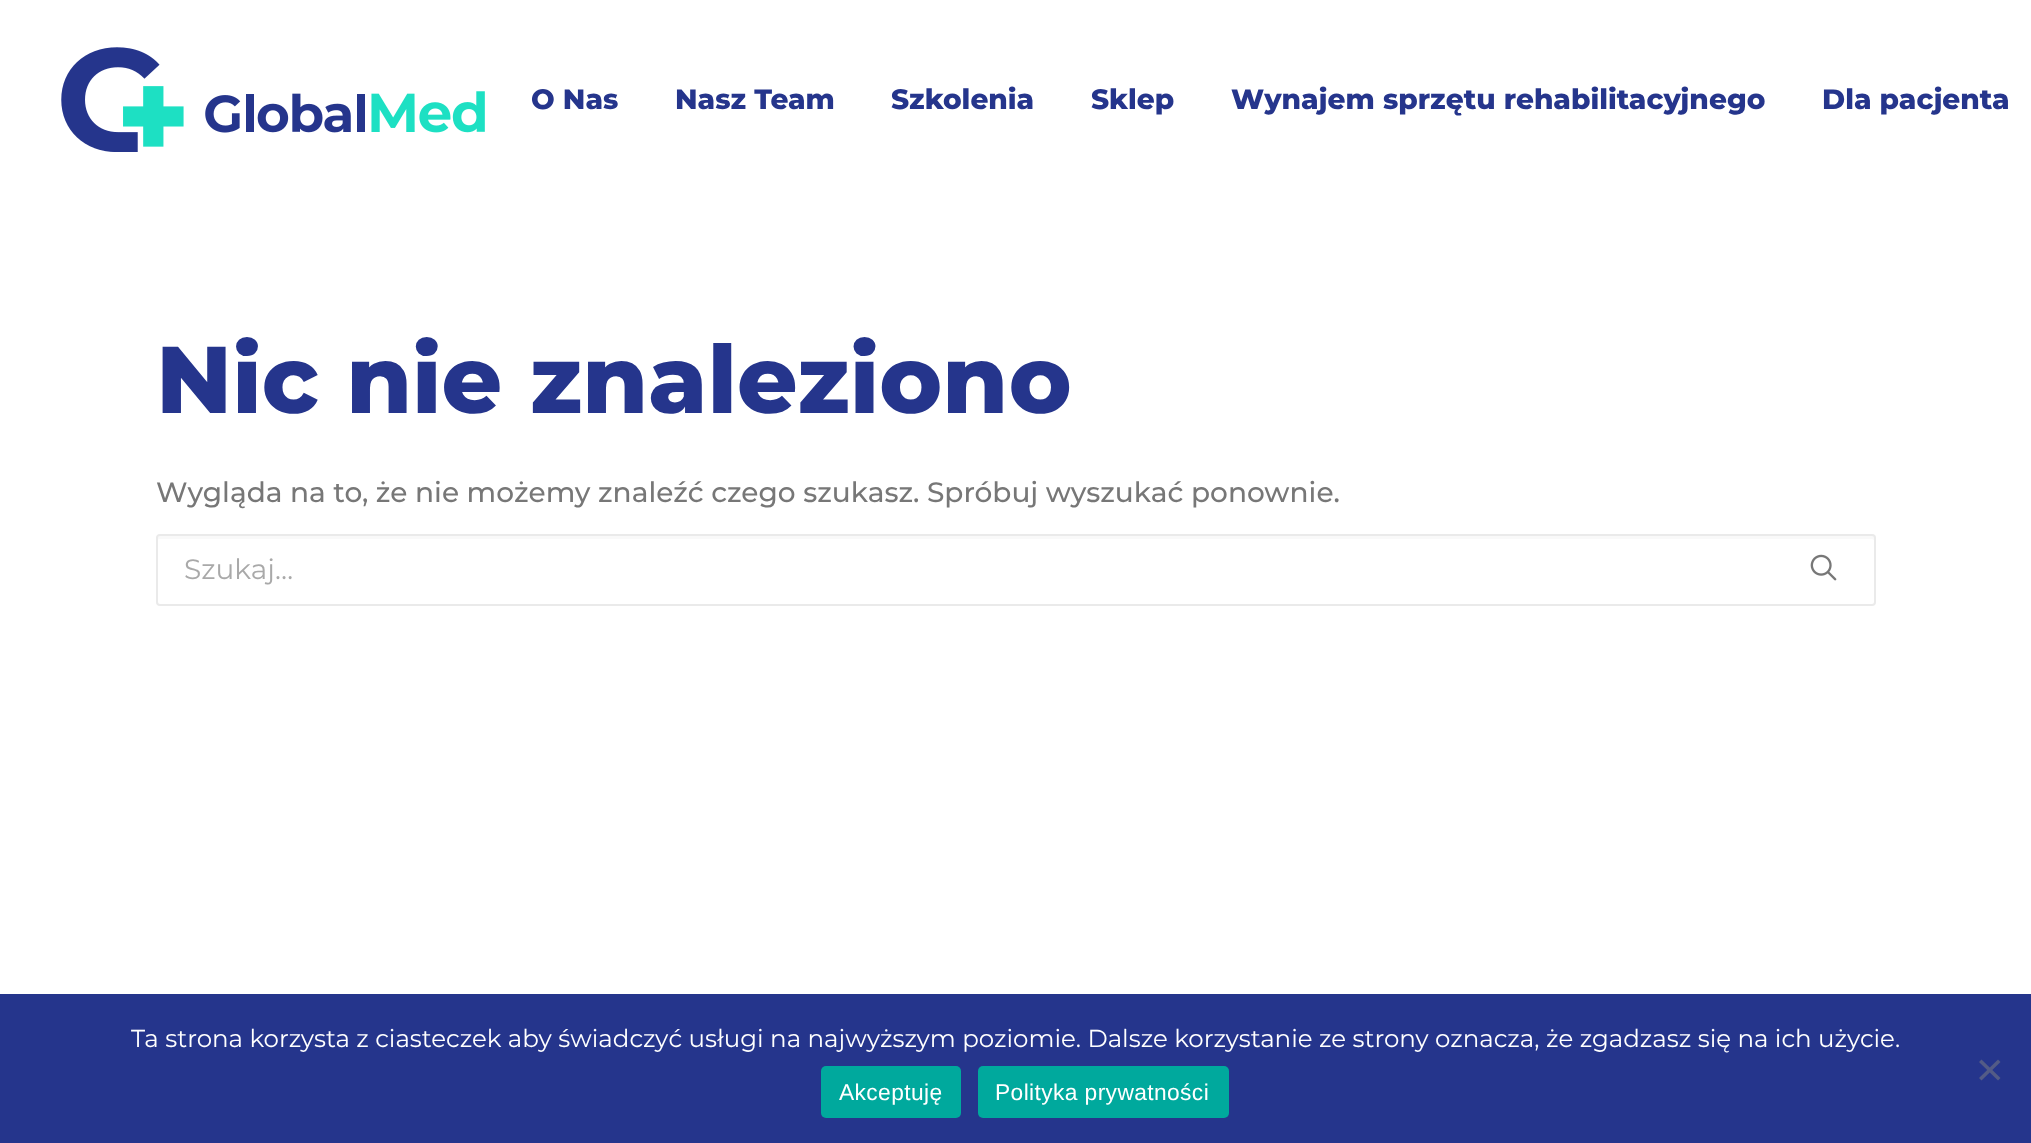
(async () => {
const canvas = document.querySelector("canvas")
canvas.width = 2031
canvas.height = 1143
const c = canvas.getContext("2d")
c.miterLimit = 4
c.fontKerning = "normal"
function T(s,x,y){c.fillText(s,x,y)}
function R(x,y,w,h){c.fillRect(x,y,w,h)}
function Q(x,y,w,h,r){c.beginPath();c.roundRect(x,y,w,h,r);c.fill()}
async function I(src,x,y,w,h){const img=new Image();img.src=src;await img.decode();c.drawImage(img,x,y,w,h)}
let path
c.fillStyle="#fff"
R(0,0,2031,1143)
await I("1.png",61,47,424,105)
c.font="800 28px Montserrat"
c.fillStyle="#25358c"
T("O Nas",531,109)
T("Nasz Team",675,109)
T("Szkolenia",891,109)
T("Sklep",1091,109)
T("Wynajem sprzętu rehabilitacyjnego",1231,109)
T("Dla pacjenta",1822,109)
c.font="800 94.5px Montserrat"
T("Nic nie znaleziono",156,413)
c.font="500 28px Montserrat"
c.fillStyle="#777"
T("Wygląda na to, że nie możemy znaleźć czego szukasz. Spróbuj wyszukać ponownie.",156,502)
c.fillStyle="#f9f9f9"
path = new Path2D("M159 539h1713c1 0 2 1 2 2c0-2 1-5-2-5h-1712l-2 1v4c0-1 0-2 1-2z")
c.fill(path)
c.beginPath()
c.roundRect(157,535,1718,70,3)
c.strokeStyle="#eaeaea"
c.lineWidth=2
c.stroke()
c.font="28px Montserrat"
c.fillStyle="#a9a9a9"
T("Szukaj…",184,579)
await I("2.png",1810,554,27,27)
c.fillStyle="#25358c"
R(0,994,2031,149)
c.font="24.5px Montserrat"
c.fillStyle="#fff"
T("Ta strona korzysta z ciasteczek aby świadczyć usługi na najwyższym poziomie. Dalsze korzystanie ze strony oznacza, że zgadzasz się na ich użycie.",131,1047)
c.fillStyle="#535b86"
path = new Path2D("M1998 1059.5l2.5 2.5l-19 18.5l-2.5-2.5z")
c.fill(path)
path = new Path2D("M1979 1062l2.5-2.5l19 18.5l-2.5 2.5z")
c.fill(path)
c.fillStyle="#00a99d"
Q(821,1066,140,52,5)
c.letterSpacing="0.4px"
c.font="22.75px Liberation Sans"
c.fillStyle="#fff"
T("Akceptuję",839,1100)
c.fillStyle="#00a99d"
Q(978,1066,251,52,5)
c.fillStyle="#fff"
T("Polityka prywatności",995,1100)
})()
